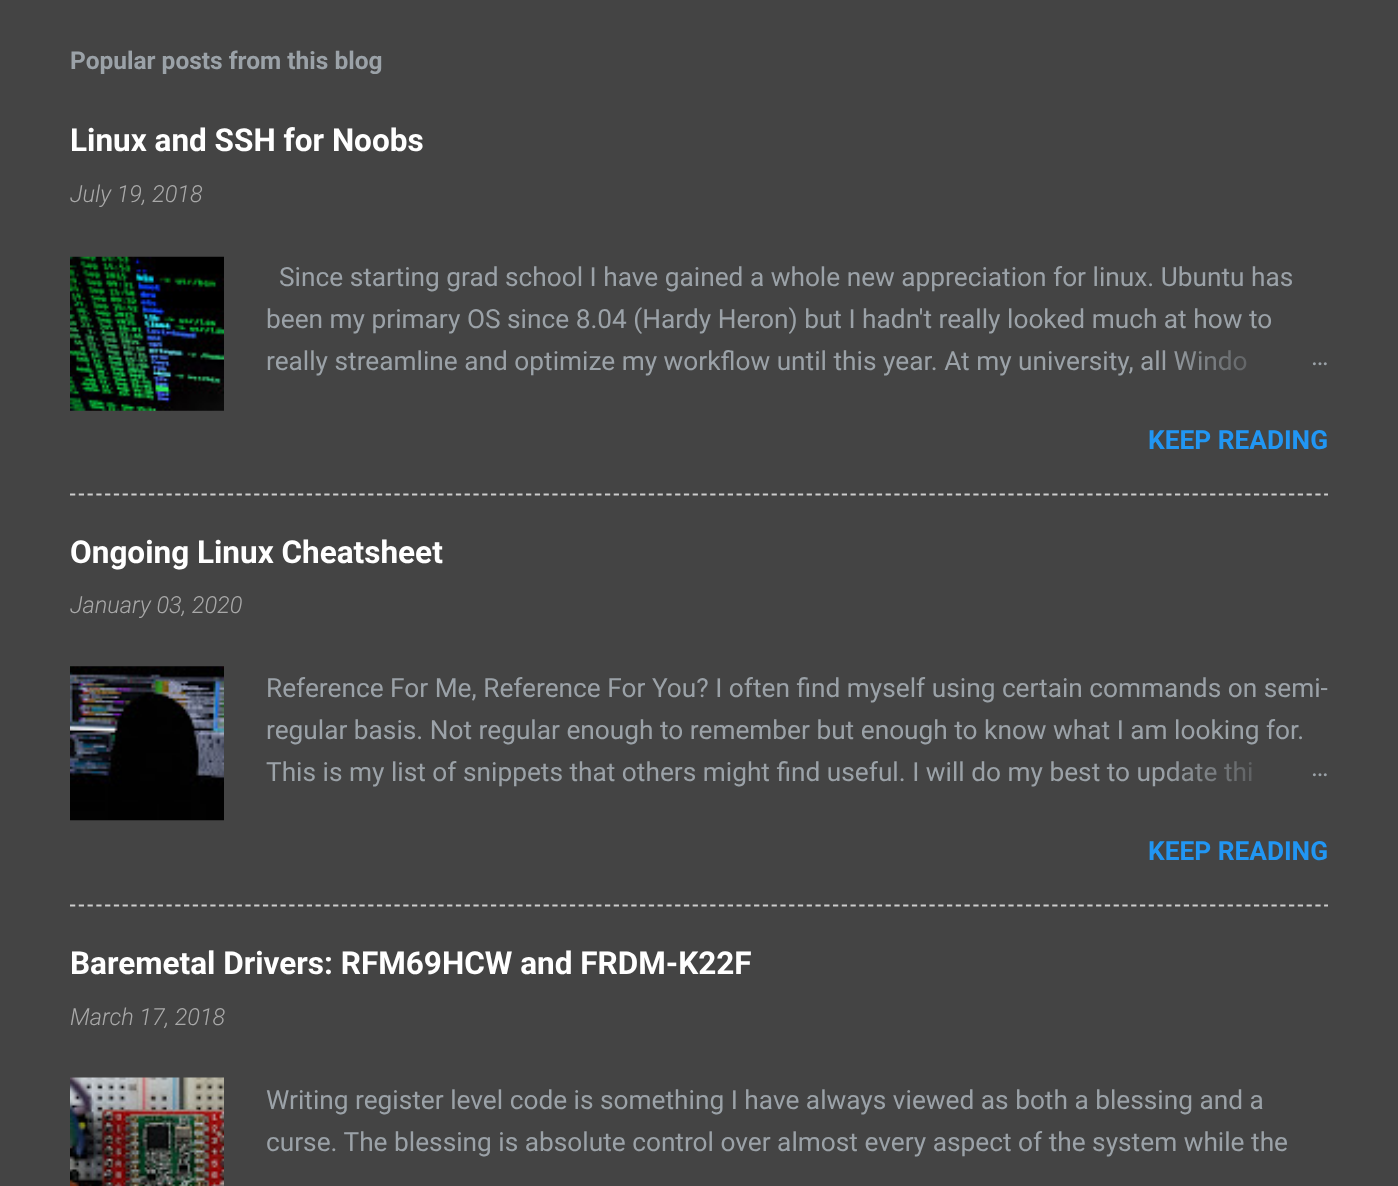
(async () => {
const canvas = document.querySelector("canvas")
canvas.width = 1398
canvas.height = 1186
const c = canvas.getContext("2d")
c.miterLimit = 4
c.fontKerning = "normal"
function T(s,x,y){c.fillText(s,x,y)}
function R(x,y,w,h){c.fillRect(x,y,w,h)}
async function I(src,x,y,w,h){const img=new Image();img.src=src;await img.decode();c.drawImage(img,x,y,w,h)}
let gradient, path
c.fillStyle="#444"
R(0,0,1398,1186)
c.font="bold 24.5px Roboto"
c.fillStyle="#9ba2a8"
T("Popular posts from this blog",70,69)
c.font="bold 31.5px Roboto"
c.fillStyle="#fff"
T("Linux and SSH for Noobs",70,151)
c.font="italic 300 23.5px Roboto"
c.fillStyle="#a9a9a9"
T("July 19, 2018",70,202)
await I("1.png",70,256,154,155)
c.font="26.25px Roboto"
c.fillStyle="#9ba2a8"
T("Since starting grad school I have gained a whole new appreciation for linux. Ubuntu has",279,286)
T("been my primary OS since 8.04 (Hardy Heron) but I hadn't really looked much at how to",266,328)
T("really streamline and optimize my workflow until this year. At my university, all Windo",266,370)
gradient = c.createLinearGradient(1328,362,1160,362)
gradient.addColorStop(0,"#444")
gradient.addColorStop(.2,"#444")
gradient.addColorStop(1,"#44444400")
c.fillStyle = gradient
R(1163,350,84,21)
c.fillStyle="#9ba2a8"
T("…",1311,365)
c.font="bold 26.25px Roboto"
c.fillStyle="#2196f3"
T("KEEP READING",1148,449)
path = new Path2D("M70 494.5h1258")
c.strokeStyle="#ccc"
c.lineWidth=1.8
c.setLineDash([5.25,3.52])
c.stroke(path)
c.font="bold 31.5px Roboto"
c.fillStyle="#fff"
T("Ongoing Linux Cheatsheet",70,563)
c.font="italic 300 23.5px Roboto"
c.fillStyle="#a9a9a9"
T("January 03, 2020",70,613)
await I("2.png",70,666,154,155)
c.font="26.25px Roboto"
c.fillStyle="#9ba2a8"
T("Reference For Me, Reference For You? I often find myself using certain commands on semi-",266,697)
T("regular basis. Not regular enough to remember but enough to know what I am looking for.",266,739)
T("This is my list of snippets that others might find useful. I will do my best to update thi",266,781)
gradient = c.createLinearGradient(1328,772,1160,772)
gradient.addColorStop(0,"#444")
gradient.addColorStop(.2,"#444")
gradient.addColorStop(1,"#44444400")
c.fillStyle = gradient
R(1163,761,89,21)
c.fillStyle="#9ba2a8"
T("…",1311,776)
c.font="bold 26.25px Roboto"
c.fillStyle="#2196f3"
T("KEEP READING",1148,860)
path = new Path2D("M70 905.5h1258")
c.stroke(path)
c.font="bold 31.5px Roboto"
c.fillStyle="#fff"
T("Baremetal Drivers: RFM69HCW and FRDM-K22F",70,974)
c.font="italic 300 23.5px Roboto"
c.fillStyle="#a9a9a9"
T("March 17, 2018",70,1025)
await I("3.png",70,1077,154,109)
c.font="26.25px Roboto"
c.fillStyle="#9ba2a8"
T("Writing register level code is something I have always viewed as both a blessing and a",266,1109)
T("curse. The blessing is absolute control over almost every aspect of the system while the",266,1151)
})()
